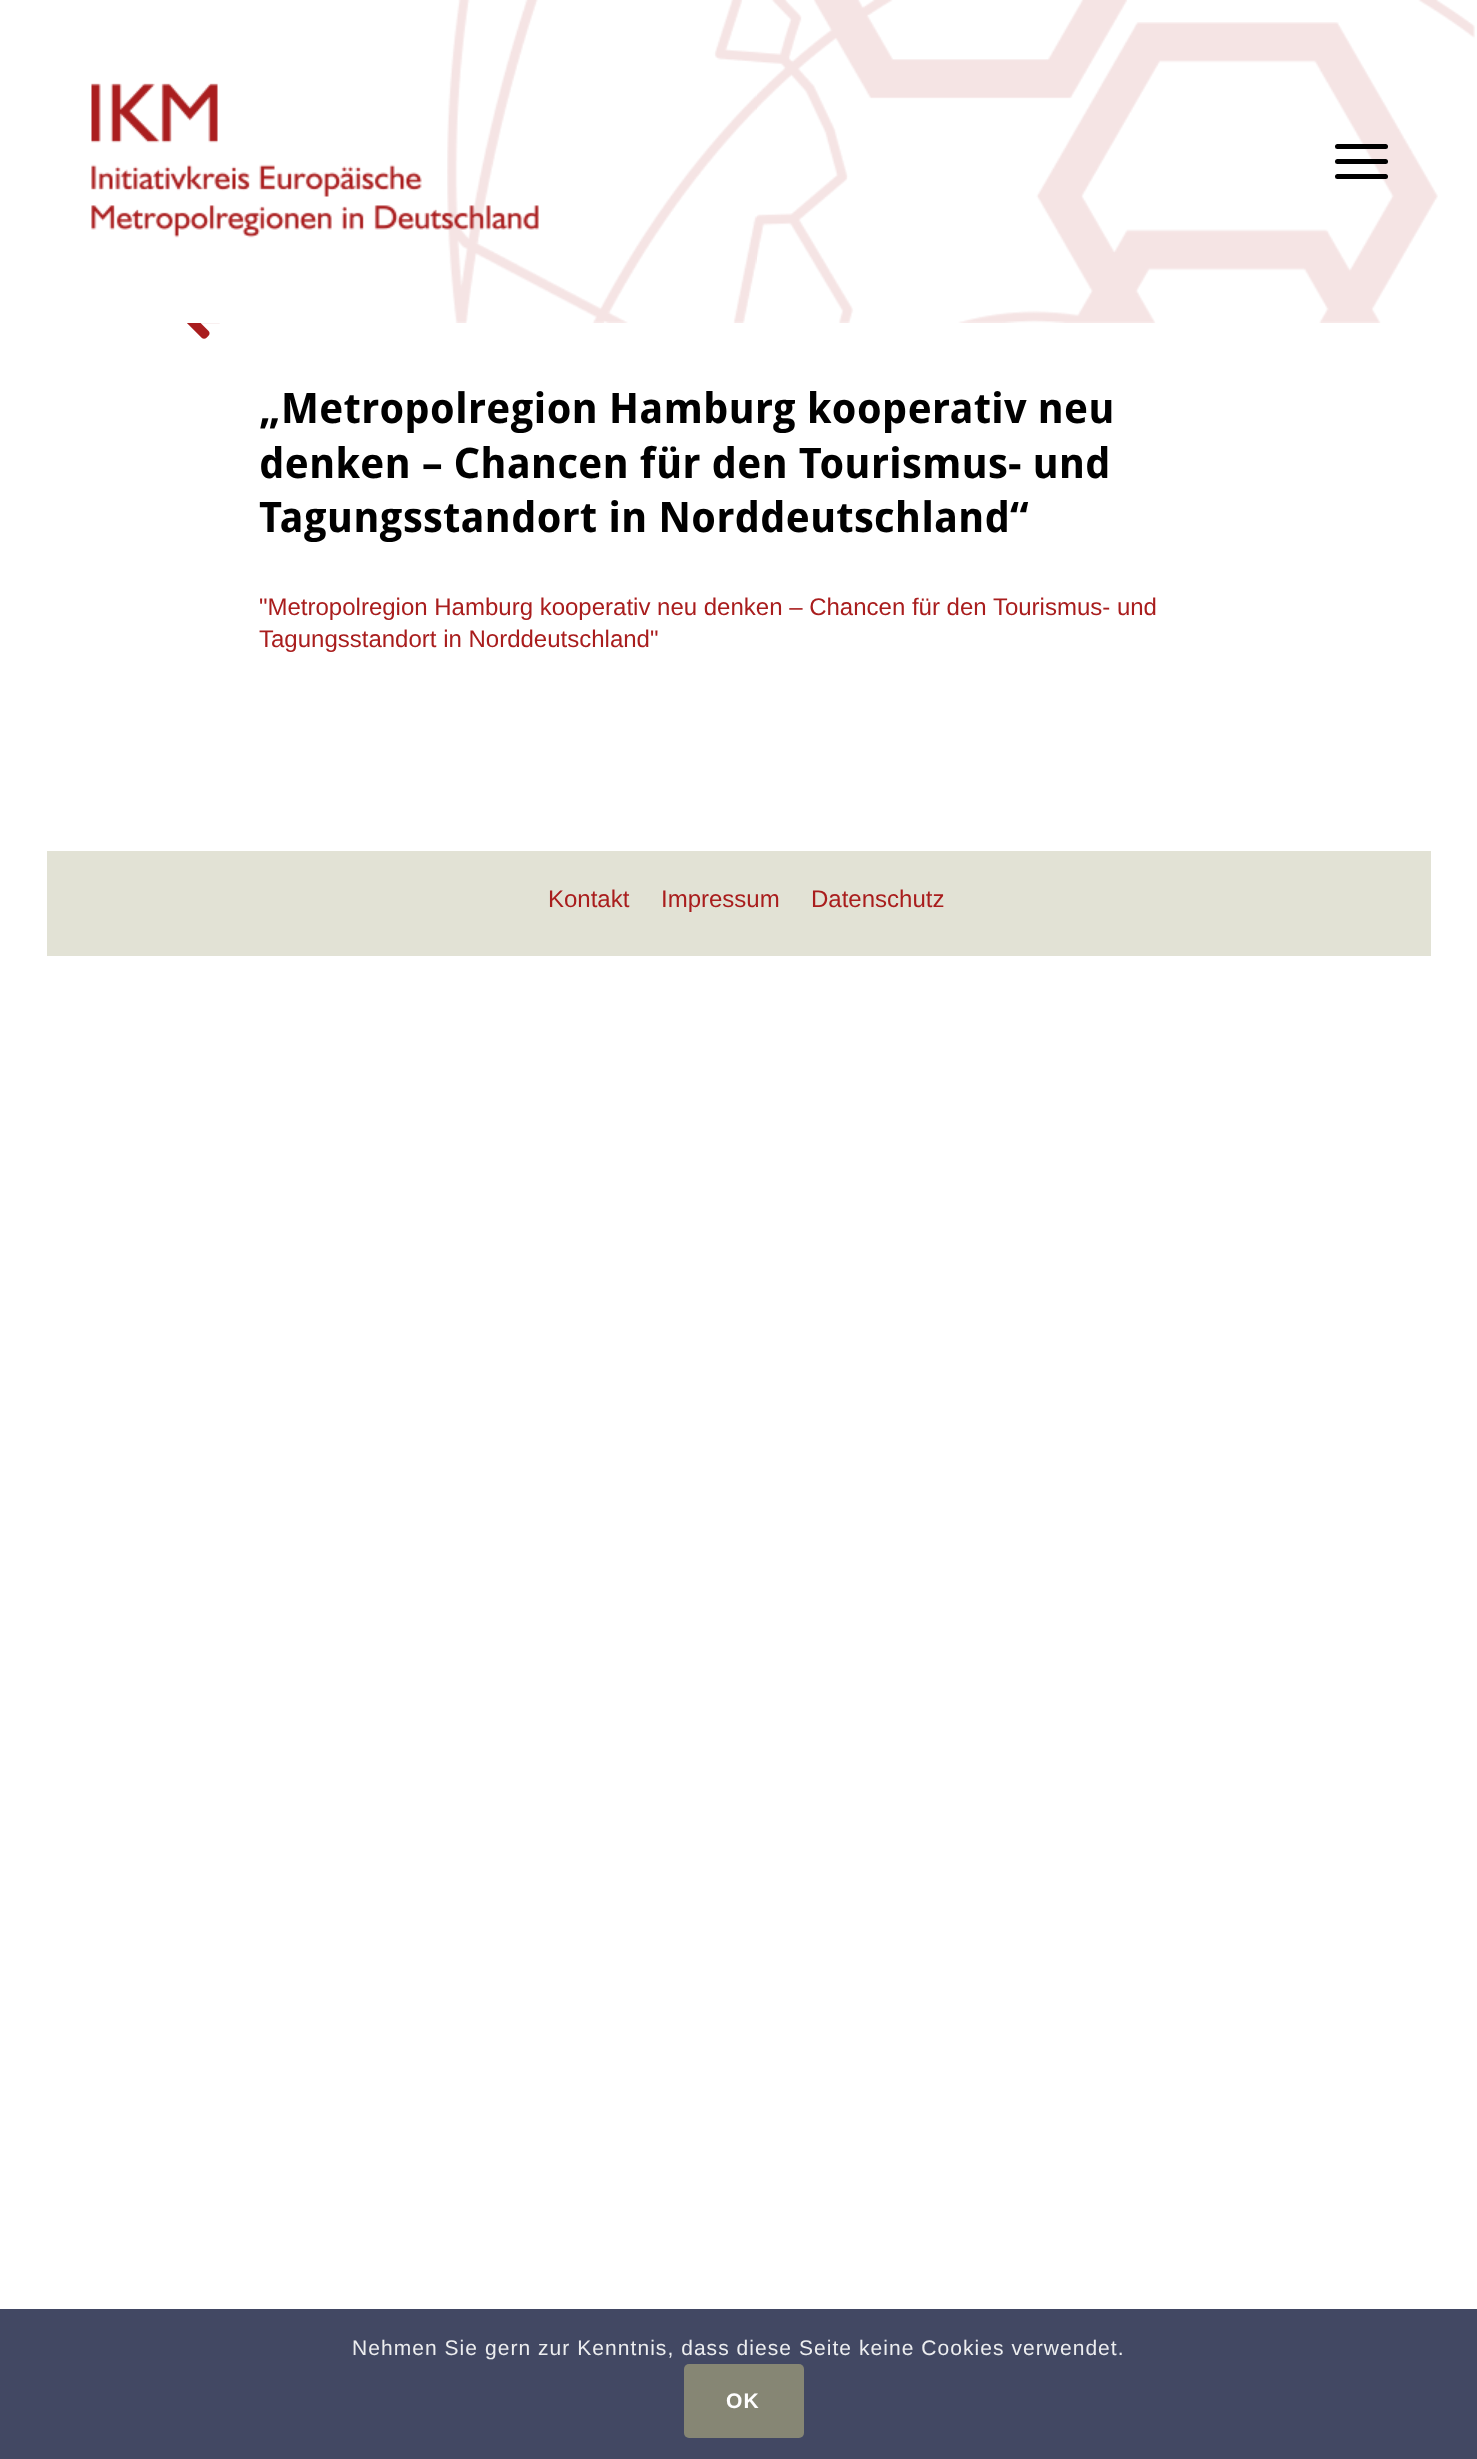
(async () => {
const canvas = document.querySelector("canvas")
canvas.width = 1477
canvas.height = 2459
const c = canvas.getContext("2d")
c.miterLimit = 4
c.fontKerning = "normal"
function T(s,x,y){c.fillText(s,x,y)}
function R(x,y,w,h){c.fillRect(x,y,w,h)}
function Q(x,y,w,h,r){c.beginPath();c.roundRect(x,y,w,h,r);c.fill()}
async function I(src,x,y,w,h){const img=new Image();img.src=src;await img.decode();c.drawImage(img,x,y,w,h)}
c.fillStyle="#fff"
R(0,0,1477,2459)
await I("1.png",447,0,1028,323)
await I("2.png",91,83,448,155)
c.fillStyle="#000"
Q(1335,159,53,5,2.5)
Q(1335,144,53,5,2.5)
Q(1335,174,53,5,2.5)
await I("3.png",187,323,33,16)
c.font="bold 42px Droid Sans"
T("„Metropolregion Hamburg kooperativ neu",259,423)
T("denken – Chancen für den Tourismus- und",259,478)
T("Tagungsstandort in Norddeutschland“",259,532)
c.font="24px Liberation Sans"
c.fillStyle="#a91d1d"
T("\"Metropolregion Hamburg kooperativ neu denken – Chancen für den Tourismus- und",259,615)
T("Tagungsstandort in Norddeutschland\"",259,647)
c.fillStyle="#e2e2d5"
R(47,851,1384,105)
c.fillStyle="#a91d1d"
T("Kontakt",548,907)
T("Impressum",661,907)
T("Datenschutz",811,907)
c.fillStyle="#424863"
R(0,2309,1477,150)
c.letterSpacing="1.05px"
c.font="21px Liberation Sans"
c.fillStyle="#ecedef"
T("Nehmen Sie gern zur Kenntnis, dass diese Seite keine Cookies verwendet.",352,2355)
c.fillStyle="#868674"
Q(684,2364,120,74,5)
c.font="bold 21px Liberation Sans"
c.fillStyle="#fff"
T("OK",726,2408)
})()
